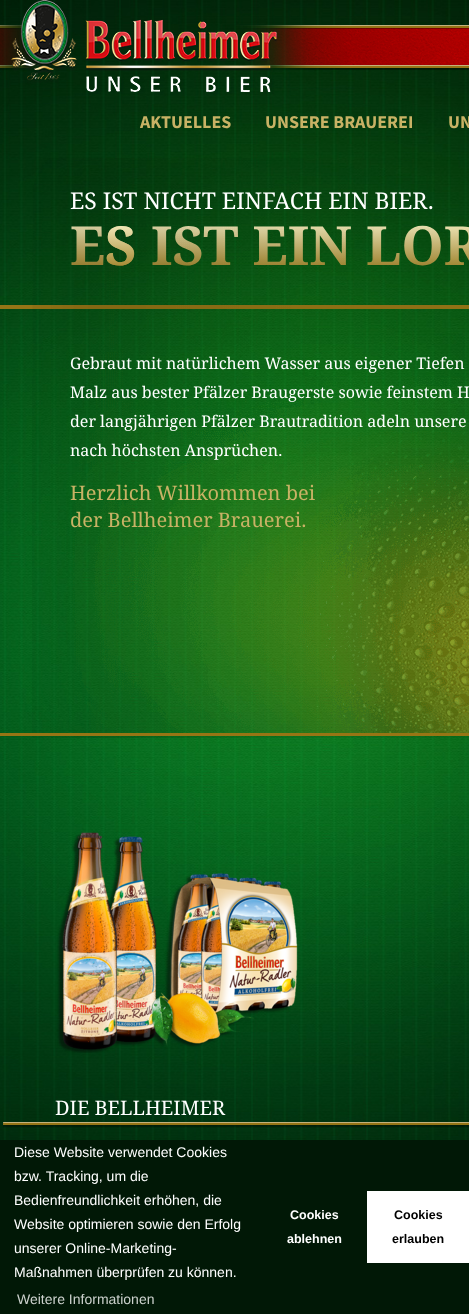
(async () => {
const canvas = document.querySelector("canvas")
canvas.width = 469
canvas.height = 1314
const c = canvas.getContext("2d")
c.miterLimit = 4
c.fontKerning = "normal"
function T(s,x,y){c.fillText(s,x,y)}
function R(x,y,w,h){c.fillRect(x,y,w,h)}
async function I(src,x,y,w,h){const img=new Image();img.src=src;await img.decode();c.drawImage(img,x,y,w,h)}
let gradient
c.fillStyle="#fff"
R(0,0,469,1314)
await I("1.png",0,0,469,1140)
await I("2.png",0,25,469,45)
await I("3.png",11,0,266,94)
c.font="bold 18px Source Sans Pro"
c.fillStyle="#c8b265"
T("AKTUELLES",140,128)
T("UNSERE BRAUEREI",265,128)
T("UN",448,128)
c.font="bold 54px Droid Serif"
gradient = c.createLinearGradient(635,220,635,274)
gradient.addColorStop(0,"#fbf4c8")
gradient.addColorStop(1,"#98791c")
c.fillStyle = gradient
T("ES IST EIN LOR",70,265)
c.fillStyle="#957516"
R(0,305,469,4)
await I("4.png",32,158,437,580)
c.font="23px Droid Serif"
c.fillStyle="#fff"
T("ES IST NICHT EINFACH EIN BIER.",70,209)
c.font="bold 54px Droid Serif"
gradient = c.createLinearGradient(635,220,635,274)
gradient.addColorStop(0,"#fbf4c8")
gradient.addColorStop(1,"#98791c")
c.fillStyle = gradient
T("S",105,265)
c.font="16px Droid Serif"
c.fillStyle="#fff"
T("Gebraut mit natürlichem Wasser aus eigener Tiefen",70,369)
T("Malz aus bester Pfälzer Braugerste sowie feinstem H",70,398)
T("der langjährigen Pfälzer Brautradition adeln unsere",70,427)
T("nach höchsten Ansprüchen.",70,456)
c.font="20px Droid Serif"
c.fillStyle="#c8b265"
T("Herzlich Willkommen bei",70,500)
T("der Bellheimer Brauerei.",70,527)
c.fillStyle="#977514"
R(0,733,469,3)
await I("5.png",57,832,241,221)
c.fillStyle="#fff"
T("DIE BELLHEIMER",55,1115)
await I("6.png",3,1122,466,6)
c.fillStyle="#011806"
R(0,1140,469,174)
c.font="14px Liberation Sans"
c.fillStyle="#fff"
T("Diese Website verwendet Cookies",14,1157)
T("bzw. Tracking, um die",14,1181)
T("Bedienfreundlichkeit erhöhen, die",14,1205)
T("Website optimieren sowie den Erfolg",14,1229)
T("unserer Online-Marketing-",14,1253)
T("Maßnahmen überprüfen zu können.",14,1277)
c.fillStyle="#ccd1cd"
T("Weitere Informationen",17,1304)
c.font="bold 12.5px Liberation Sans"
c.fillStyle="#fff"
T("Cookies",290,1219)
T("ablehnen",287,1243)
R(367,1191,102,72)
c.fillStyle="#000"
T("Cookies",394,1219)
T("erlauben",392,1243)
})()
